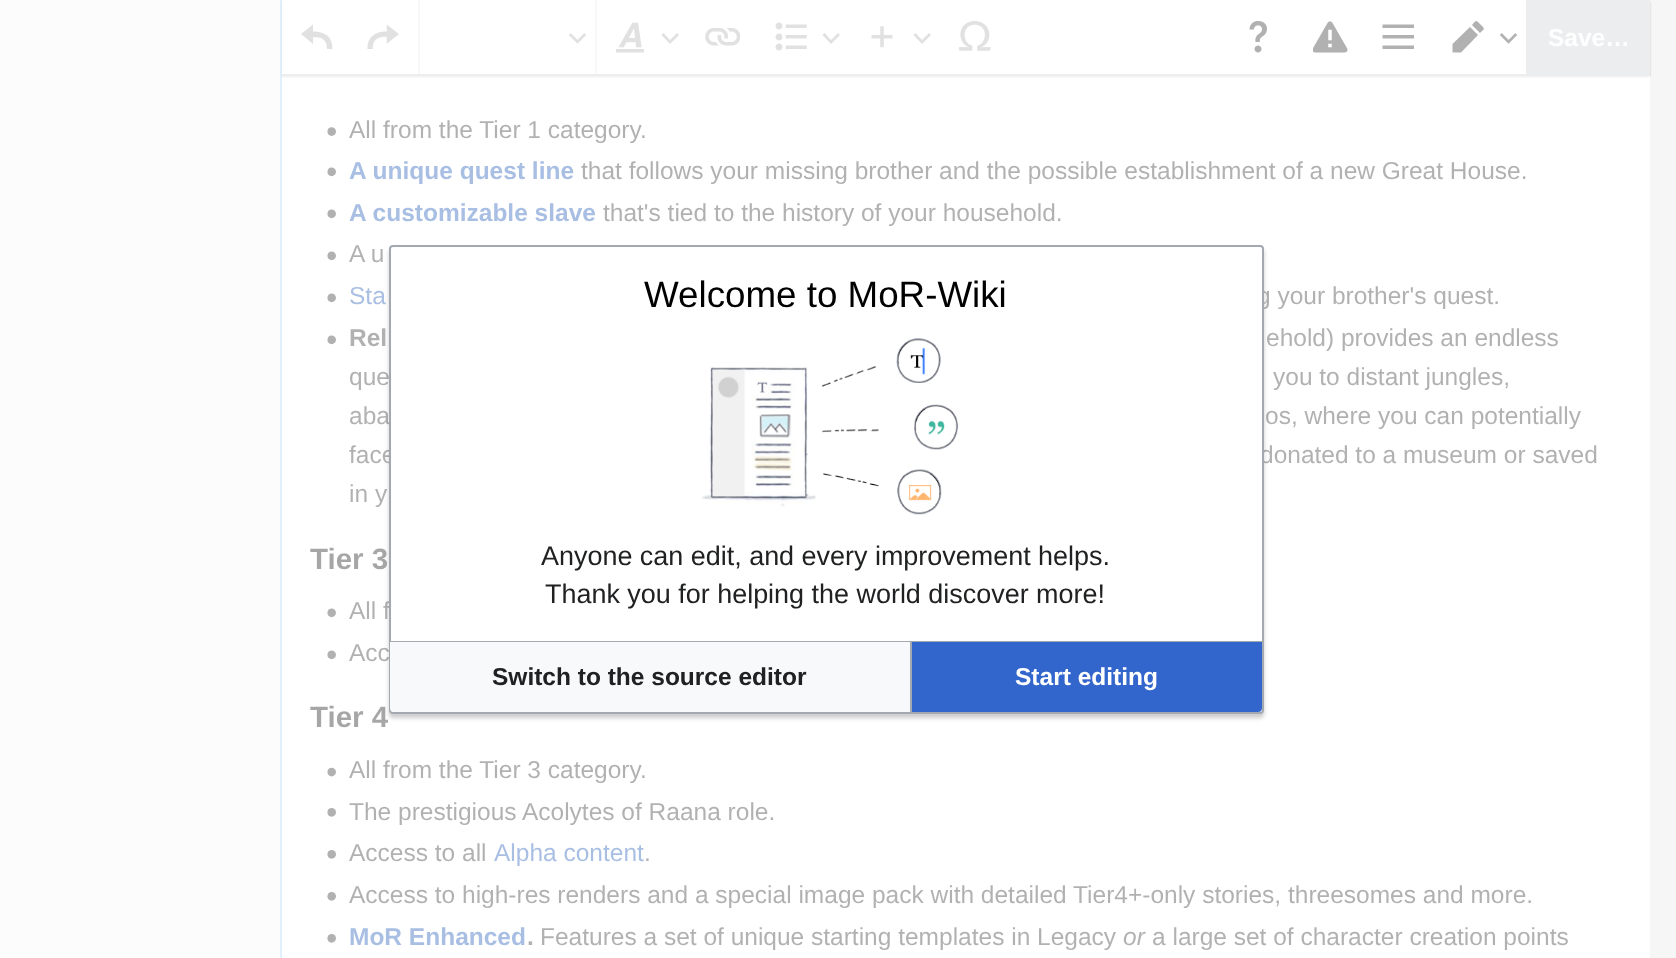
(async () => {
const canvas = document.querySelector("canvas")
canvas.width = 1676
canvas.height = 958
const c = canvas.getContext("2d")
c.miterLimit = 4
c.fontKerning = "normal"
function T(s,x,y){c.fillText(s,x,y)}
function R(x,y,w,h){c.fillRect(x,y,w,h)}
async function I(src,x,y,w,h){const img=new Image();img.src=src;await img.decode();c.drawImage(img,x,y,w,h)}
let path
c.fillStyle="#f6f6f6"
R(0,0,1676,958)
c.fillStyle="#fff"
R(282,76,1368,882)
c.fillStyle="#a7d7f9"
R(280,0,2,958)
c.fillStyle="#00000033"
c.filter="blur(1px)"
c.beginPath()
c.rect(282,2,1368,75)
c.fill()
c.filter="none"
c.fillStyle="#fff"
R(282,0,1244,74)
c.fillStyle="#c8ccd1"
R(282,74,1368,2)
c.fillStyle="#a8a8a8"
path = new Path2D("M301 34l12 10v-7c9 0 14 2.5 14 12h5.5c0-12.5-7.5-17.5-19.5-17.5v-7z")
c.fill(path)
await I("1.png",367,24,32,25)
c.fillStyle="#eaecf0"
R(595,0,2,74)
R(418,0,2,74)
await I("2.png",569,33,17,11)
await I("3.png",616,22,28,31)
c.fillStyle="#a8a8a8"
path = new Path2D("M677 33l-7 7l-6.5-7l-2 2l8.5 9l9-9z")
c.fill(path)
await I("4.png",705,28,35,18)
await I("5.png",775,22,32,29)
path = new Path2D("M838 33l-7 7l-6.5-7l-2 2l8.5 9l9-9z")
c.fill(path)
await I("6.png",871,26,22,22)
path = new Path2D("M929 33l-7 7l-6.5-7l-2 2l8.5 9l9-9z")
c.fill(path)
await I("7.png",959,21,32,30)
await I("8.png",1249,21,18,32)
await I("9.png",1313,21,35,32)
await I("10.png",1382,24,32,25)
c.fillStyle="#212121"
path = new Path2D("M1480 33c4.5-4.5 5.5-3.5 .5-8.5c-5-5-4-4.5-8.5 .5zm-27.5 11v8.5h8.5l17-17.5l-8-8z")
c.fill(path)
await I("11.png",1500,33,18,11)
c.fillStyle="#c8ccd1"
R(1526,0,124,74)
c.font="bold 24.5px Liberation Sans"
c.fillStyle="#fff"
T("Save…",1548,46)
await I("12.png",327,127,9,9)
c.font="24.5px Liberation Sans"
c.fillStyle="#202122"
T("All from the Tier 1 category.",349,138)
await I("13.png",327,167,9,10)
c.font="bold 24.5px Liberation Sans"
c.fillStyle="#0645ad"
T("A unique quest line",349,179)
c.font="24.5px Liberation Sans"
c.fillStyle="#202122"
T("that follows your missing brother and the possible establishment of a new Great House.",581,179)
await I("13.png",327,209,9,10)
c.font="bold 24.5px Liberation Sans"
c.fillStyle="#0645ad"
T("A customizable slave",349,221)
c.font="24.5px Liberation Sans"
c.fillStyle="#202122"
T("that's tied to the history of your household.",603,221)
await I("13.png",327,251,9,10)
T("A u",349,262)
await I("13.png",327,293,9,10)
c.fillStyle="#0645ad"
T("Sta",349,304)
c.fillStyle="#202122"
T("g your brother's quest.",1257,304)
await I("13.png",327,335,9,10)
c.font="bold 24.5px Liberation Sans"
T("Rel",349,346)
c.font="24.5px Liberation Sans"
T("ehold) provides an endless",1266,346)
T("que",349,385)
T("you to distant jungles,",1273,385)
T("aba",349,424)
T("os, where you can potentially",1265,424)
T("face",349,463)
T("donated to a museum or saved",1260,463)
T("in y",349,502)
c.font="bold 29.5px Liberation Sans"
c.fillStyle="#000"
T("Tier 3",310,569)
await I("13.png",327,608,9,10)
c.font="24.5px Liberation Sans"
c.fillStyle="#202122"
T("All f",349,619)
await I("13.png",327,650,9,10)
T("Acc",349,661)
c.font="bold 29.5px Liberation Sans"
c.fillStyle="#000"
T("Tier 4",310,727)
await I("14.png",327,767,9,10)
c.font="24.5px Liberation Sans"
c.fillStyle="#202122"
T("All from the Tier 3 category.",349,778)
await I("15.png",327,808,9,9)
T("The prestigious Acolytes of Raana role.",349,820)
await I("15.png",327,850,9,9)
T("Access to all",349,861)
c.fillStyle="#0645ad"
T("Alpha content",494,861)
c.fillStyle="#202122"
T(".",644,861)
await I("16.png",327,892,9,9)
T("Access to high-res renders and a special image pack with detailed Tier4+-only stories, threesomes and more.",349,903)
await I("15.png",327,934,9,9)
c.font="bold 24.5px Liberation Sans"
c.fillStyle="#0645ad"
T("MoR Enhanced",349,945)
c.fillStyle="#202122"
T(".",527,945)
c.font="24.5px Liberation Sans"
T("Features a set of unique starting templates in Legacy",540,945)
c.font="italic 24.5px Liberation Sans"
T("or",1123,945)
c.font="24.5px Liberation Sans"
T("a large set of character creation points",1152,945)
c.fillStyle="#ffffffa6"
R(0,0,1650,958)
c.fillStyle="#00000033"
c.filter="blur(2px)"
c.beginPath()
c.roundRect(389,249,875,469,4)
c.fill()
c.filter="none"
c.fillStyle="#fff"
c.beginPath()
c.roundRect(390,246,873,467,3)
c.fill()
c.strokeStyle="#a2a9b1"
c.lineWidth=2
c.stroke()
c.font="36.75px Liberation Sans"
c.fillStyle="#000"
T("Welcome to MoR-Wiki",644,307)
await I("17.png",702,338,257,177)
c.font="26.95px Liberation Sans"
c.fillStyle="#202122"
T("Anyone can edit, and every improvement helps.",541,565)
T("Thank you for helping the world discover more!",545,603)
c.save()
c.beginPath()
c.rect(390,247,872,465)
c.clip()
c.strokeRect(390,642,873,71)
c.restore()
c.fillStyle="#a2a9b1"
R(910,642,2,70)
c.fillStyle="#f8f9fa"
c.beginPath()
c.roundRect(390,642,520,70,[0,0,0,4])
c.fill()
c.font="bold 24.5px Liberation Sans"
c.fillStyle="#202122"
T("Switch to the source editor",492,685)
c.fillStyle="#36c"
c.beginPath()
c.roundRect(912,642,350,70,[0,0,4,0])
c.fill()
c.fillStyle="#fff"
T("Start editing",1015,685)
})()
